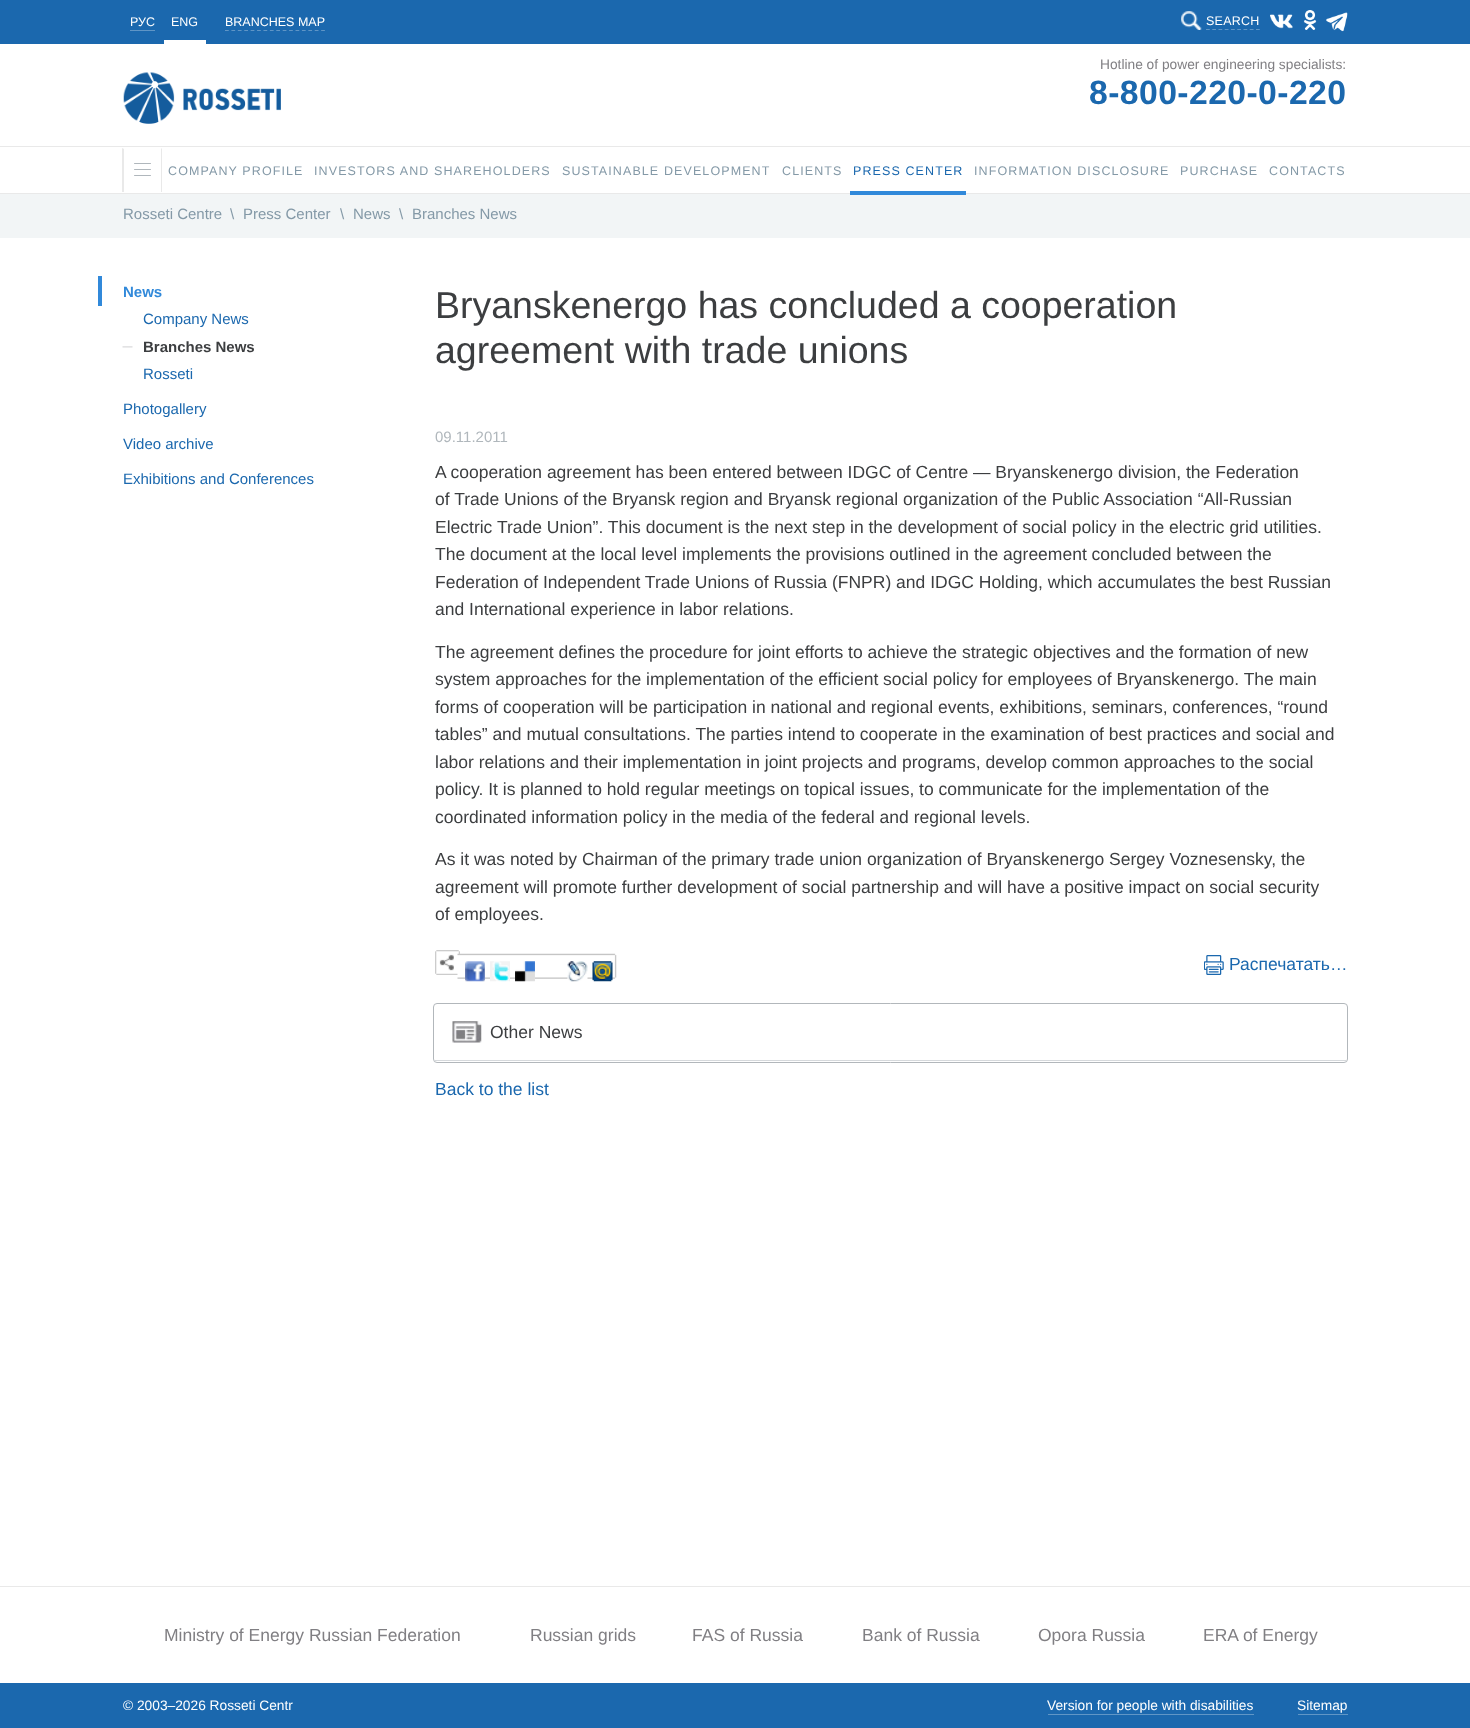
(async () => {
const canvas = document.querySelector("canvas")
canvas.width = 1470
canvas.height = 1728
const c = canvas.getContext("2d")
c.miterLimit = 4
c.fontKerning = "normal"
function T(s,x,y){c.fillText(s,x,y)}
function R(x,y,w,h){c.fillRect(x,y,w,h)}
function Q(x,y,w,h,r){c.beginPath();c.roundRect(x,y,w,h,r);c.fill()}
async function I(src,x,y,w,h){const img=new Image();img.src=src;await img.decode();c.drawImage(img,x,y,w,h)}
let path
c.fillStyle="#fff"
R(0,0,1470,1728)
c.fillStyle="#1b68ae"
R(0,0,1470,44)
c.fillStyle="#5f95c6"
R(130,30,25,1)
c.font="12.5px Liberation Sans"
c.fillStyle="#fff"
T("РУС",130,26)
R(164,40,42,4)
T("ENG",171,26)
path = new Path2D("M225 30.5h100")
c.strokeStyle="#5f95c6"
c.lineWidth=1.2
c.setLineDash([3.75,2.66])
c.stroke(path)
T("BRANCHES MAP",225,26)
await I("1.png",1181,11,21,19)
path = new Path2D("M1206 29.5h54")
c.setLineDash([3.75,2.5])
c.stroke(path)
c.letterSpacing="0.25px"
T("SEARCH",1206,25)
await I("2.png",1270,14,23,15)
await I("3.png",1303,10,14,20)
await I("4.png",1326,12,22,20)
c.fillStyle="#e9e9e9"
R(0,146,1470,1)
await I("5.png",123,72,158,52)
c.letterSpacing="0px"
c.font="13.75px Liberation Sans"
c.fillStyle="#807f83"
T("Hotline of power engineering specialists:",1100,69)
c.letterSpacing="0.4px"
c.font="bold 33.75px Liberation Sans"
c.fillStyle="#1b68ae"
T("8-800-220-0-220",1089,104)
c.fillStyle="#e9e9e9"
R(0,193,1470,1)
path = new Path2D("M162 148v44h-1v-43zm-40 44v-44l2 1v43z")
c.fill(path)
c.fillStyle="#b0b7bc"
Q(134,169,17,1,.5)
Q(134,163,17,1,.5)
Q(134,175,17,1,.5)
c.letterSpacing="1.1px"
c.font="12.5px Liberation Sans"
c.fillStyle="#8499a7"
T("COMPANY PROFILE",168,175)
T("INVESTORS AND SHAREHOLDERS",314,175)
T("SUSTAINABLE DEVELOPMENT",562,175)
T("CLIENTS",782,175)
c.fillStyle="#1b68ae"
T("PRESS CENTER",853,175)
c.fillStyle="#f2f5f6"
R(0,194,1470,44)
c.fillStyle="#3189da"
R(850,191,116,4)
c.fillStyle="#8499a7"
T("INFORMATION DISCLOSURE",974,175)
T("PURCHASE",1180,175)
T("CONTACTS",1269,175)
c.letterSpacing="0px"
c.font="15px Liberation Sans"
T("Rosseti Centre",123,219)
T("\\",230,219)
T("Press Center",243,219)
T("\\",340,219)
T("News",353,219)
T("\\",399,219)
T("Branches News",412,219)
c.fillStyle="#3189da"
R(98,276,4,30)
c.font="bold 15px Liberation Sans"
T("News",123,297)
c.font="15px Liberation Sans"
c.fillStyle="#1b68ae"
T("Company News",143,324)
await I("6.png",122,346,11,2)
c.font="bold 15px Liberation Sans"
c.fillStyle="#3c3e40"
T("Branches News",143,352)
c.font="15px Liberation Sans"
c.fillStyle="#1b68ae"
T("Rosseti",143,379)
T("Photogallery",123,414)
T("Video archive",123,449)
T("Exhibitions and Conferences",123,484)
c.font="37.5px Liberation Sans"
c.fillStyle="#3c3e40"
T("Bryanskenergo has concluded a cooperation",435,318)
T("agreement with trade unions",435,363)
c.font="15px Liberation Sans"
c.fillStyle="#b0b7bc"
T("09.11.2011",435,442)
c.font="17.5px Liberation Sans"
c.fillStyle="#3c3e40"
T("A cooperation agreement has been entered between IDGC of Centre — Bryanskenergo division, the Federation",435,478)
T("of Trade Unions of the Bryansk region and Bryansk regional organization of the Public Association “All-Russian",435,505)
T("Electric Trade Union”. This document is the next step in the development of social policy in the electric grid utilities.",435,533)
T("The document at the local level implements the provisions outlined in the agreement concluded between the",435,560)
T("Federation of Independent Trade Unions of Russia (FNPR) and IDGC Holding, which accumulates the best Russian",435,588)
T("and International experience in labor relations.",435,615)
T("The agreement defines the procedure for joint efforts to achieve the strategic objectives and the formation of new",435,658)
T("system approaches for the implementation of the efficient social policy for employees of Bryanskenergo. The main",435,685)
T("forms of cooperation will be participation in national and regional events, exhibitions, seminars, conferences, “round",435,713)
T("tables” and mutual consultations. The parties intend to cooperate in the examination of best practices and social and",435,740)
T("labor relations and their implementation in joint projects and programs, develop common approaches to the social",435,768)
T("policy. It is planned to hold regular meetings on topical issues, to communicate for the implementation of the",435,795)
T("coordinated information policy in the media of the federal and regional levels.",435,823)
T("As it was noted by Chairman of the primary trade union organization of Bryanskenergo Sergey Voznesensky, the",435,865)
T("agreement will promote further development of social partnership and will have a positive impact on social security",435,893)
T("of employees.",435,920)
await I("7.png",435,950,25,25)
await I("8.png",457,953,160,26)
await I("9.png",465,961,20,21)
await I("10.png",490,961,20,21)
await I("11.png",515,961,20,21)
await I("12.png",567,961,21,21)
await I("13.png",592,961,21,21)
await I("14.png",1204,955,20,20)
c.fillStyle="#1b68ae"
T("Распечатать…",1229,970)
c.beginPath()
c.roundRect(433.5,1003.5,914,59,3.5)
c.strokeStyle="#b2b7bb"
c.lineWidth=1
c.setLineDash([])
c.stroke()
await I("15.png",452,1021,30,22)
c.fillStyle="#d6d9dc"
R(434,1060,912,1)
c.fillStyle="#3c3e40"
T("Other News",490,1038)
c.fillStyle="#1b68ae"
T("Back to the list",435,1095)
c.fillStyle="#e9e9e9"
R(0,1586,1470,1)
c.fillStyle="#807f83"
T("Ministry of Energy Russian Federation",164,1641)
T("Russian grids",530,1641)
T("FAS of Russia",692,1641)
T("Bank of Russia",862,1641)
T("Opora Russia",1038,1641)
T("ERA of Energy",1203,1641)
c.fillStyle="#1b68ae"
R(0,1683,1470,45)
c.font="13.75px Liberation Sans"
c.fillStyle="#fff"
T("© 2003–2026 Rosseti Centr",123,1710)
c.fillStyle="#6096c6"
R(1048,1714,206,1)
c.fillStyle="#fff"
T("Version for people with disabilities",1047,1710)
c.fillStyle="#6096c6"
R(1298,1714,50,1)
c.fillStyle="#fff"
T("Sitemap",1297,1710)
})()
